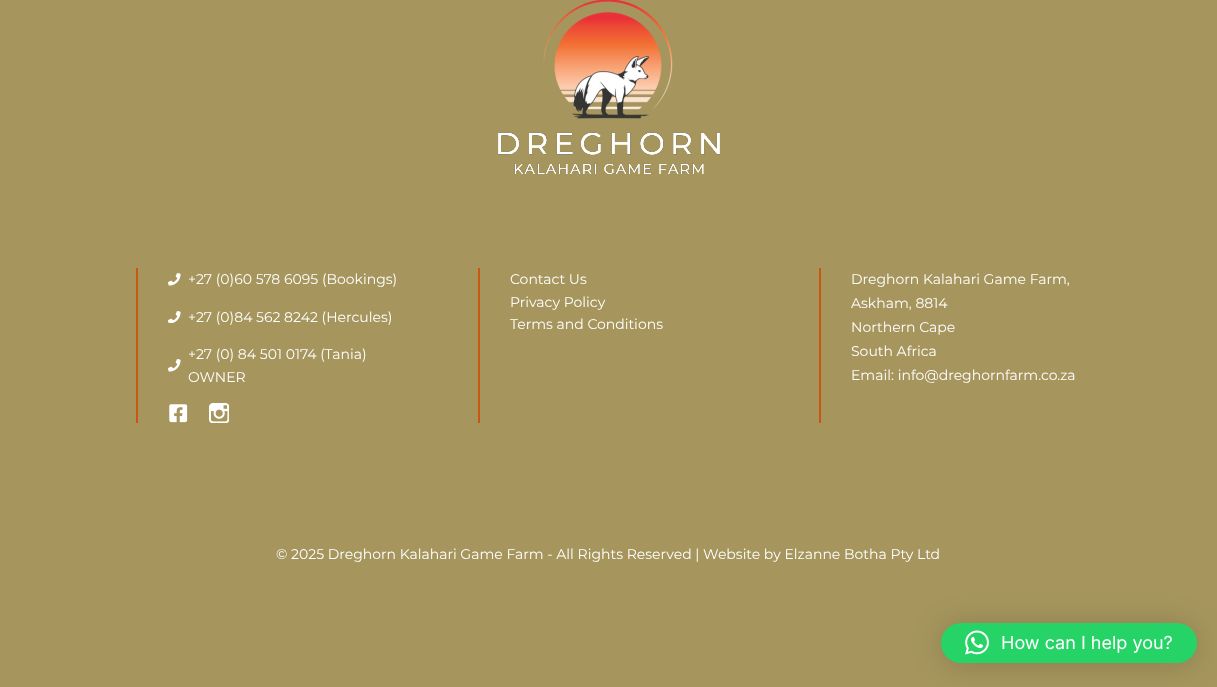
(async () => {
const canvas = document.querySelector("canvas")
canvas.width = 1217
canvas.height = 687
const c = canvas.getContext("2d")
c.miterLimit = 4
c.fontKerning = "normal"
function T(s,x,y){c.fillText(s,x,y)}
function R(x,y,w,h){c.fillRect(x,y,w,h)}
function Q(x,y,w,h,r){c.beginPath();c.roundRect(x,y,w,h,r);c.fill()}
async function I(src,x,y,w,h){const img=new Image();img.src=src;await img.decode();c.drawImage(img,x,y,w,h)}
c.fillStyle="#a6965e"
R(0,0,1217,687)
await I("1.png",498,0,222,175)
c.fillStyle="#c65811"
R(136,268,2,155)
await I("2.png",168,273,13,13)
c.font="14px Montserrat"
c.fillStyle="#fff"
T("+27 (0)60 578 6095 (Bookings)",188,284)
await I("3.png",168,311,13,12)
T("+27 (0)84 562 8242 (Hercules)",188,322)
await I("2.png",168,359,13,13)
T("+27 (0) 84 501 0174 (Tania)",188,359)
T("OWNER",188,382)
await I("4.png",169,404,19,19)
await I("5.png",209,403,20,20)
c.fillStyle="#c65811"
R(478,268,2,155)
c.fillStyle="#fff"
T("Contact Us",510,284)
T("Privacy Policy",510,307)
T("Terms and Conditions",510,329)
c.fillStyle="#c65811"
R(819,268,2,155)
c.fillStyle="#fff"
T("Dreghorn Kalahari Game Farm,",851,284)
T("Askham, 8814",851,308)
T("Northern Cape",851,332)
T("South Africa",851,356)
T("Email: info@dreghornfarm.co.za",851,380)
T("© 2025 Dreghorn Kalahari Game Farm - All Rights Reserved | Website by Elzanne Botha Pty Ltd",276,559)
c.fillStyle="#00000029"
c.filter="blur(16px)"
c.beginPath()
c.roundRect(941,625,256,40,20)
c.fill()
c.filter="none"
c.fillStyle="#25d366"
Q(941,623,256,40,20)
await I("6.png",965,630,24,25)
c.font="18px Inter"
c.fillStyle="#fff"
T("How can I help you?",1001,649)
})()
